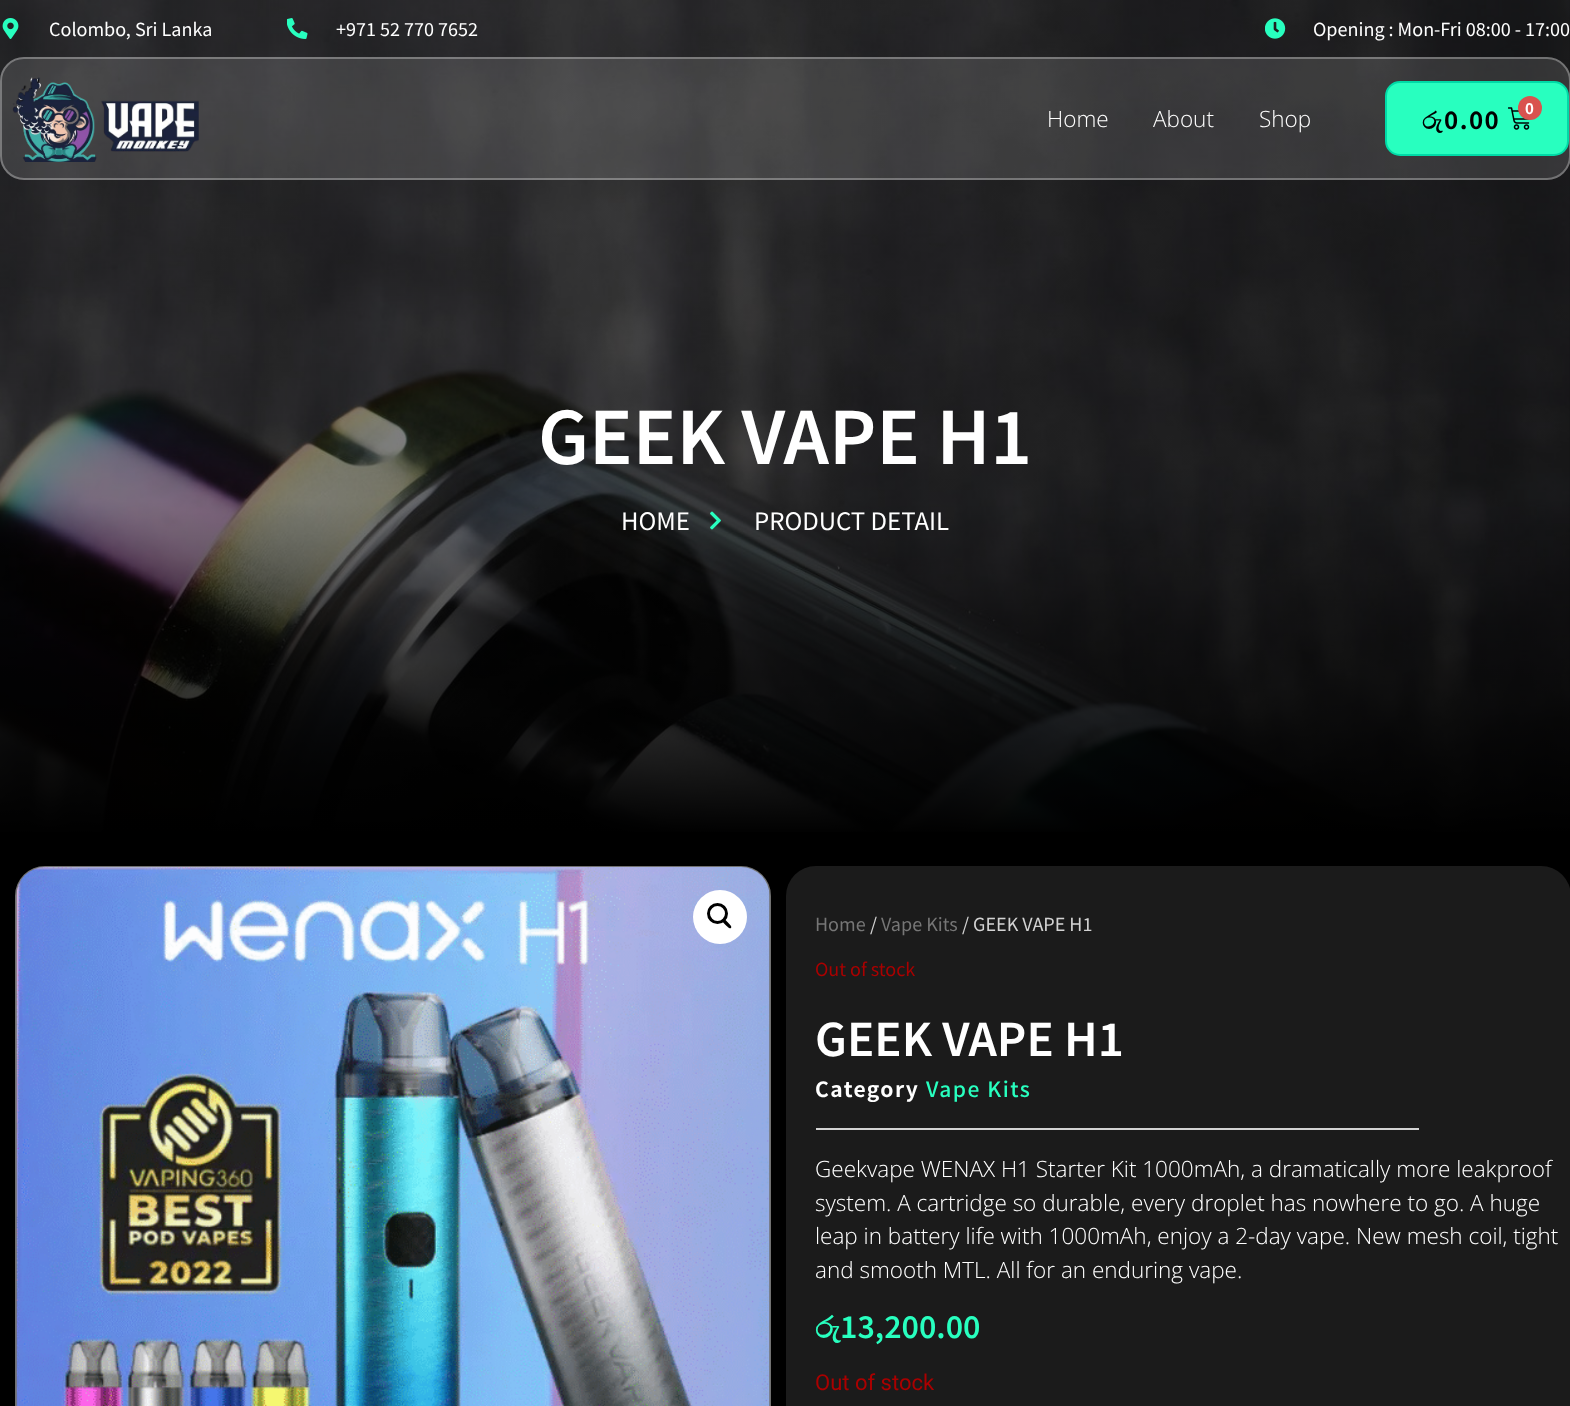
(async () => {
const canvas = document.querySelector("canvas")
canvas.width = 1570
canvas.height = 1406
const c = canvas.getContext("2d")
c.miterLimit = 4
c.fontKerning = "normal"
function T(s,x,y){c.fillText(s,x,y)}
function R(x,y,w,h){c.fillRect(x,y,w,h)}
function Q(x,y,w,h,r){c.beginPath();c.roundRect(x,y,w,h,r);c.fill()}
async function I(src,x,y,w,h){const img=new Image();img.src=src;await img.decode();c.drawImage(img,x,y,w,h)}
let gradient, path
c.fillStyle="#000"
R(0,0,1570,1406)
await I("6.png",0,0,1570,832)
gradient = c.createLinearGradient(785,0,785,836)
gradient.addColorStop(.6,"#00000082")
gradient.addColorStop(1,"#000")
c.fillStyle = gradient
R(0,0,1570,832)
await I("1.png",2,18,17,21)
c.font="18px Noto Sans HK"
c.fillStyle="#fff"
T("Colombo, Sri Lanka",49,36)
await I("2.png",287,18,21,21)
T("+971 52 770 7652",336,36)
await I("3.png",1265,18,21,21)
T("Opening : Mon-Fri 08:00 - 17:00",1313,36)
c.fillStyle="#ffffff21"
Q(0,57,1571,123,24)
c.beginPath()
c.roundRect(1,58,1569,121,23)
c.strokeStyle="#ffffff4d"
c.lineWidth=2
c.stroke()
await I("4.png",12,77,187,85)
c.font="300 22.5px Open Sans"
c.fillStyle="#fff"
T("Home",1047,127)
T("About",1153,127)
T("Shop",1259,127)
c.fillStyle="#28ffbf"
c.beginPath()
c.roundRect(1386,82,182,73,14)
c.fill()
c.strokeStyle="#00daa7"
c.stroke()
await I("5.png",1508,107,22,23)
c.fillStyle="#d9534f"
c.beginPath()
c.arc(1530,108,12,0,7)
c.fill()
c.letterSpacing="1.5px"
c.font="bold 15px Noto Sans HK"
c.fillStyle="#fff"
T("0",1525,114)
c.font="bold 24px FreeSerif"
c.fillStyle="#000"
T("රු",1422,129)
c.font="bold 24px Noto Sans HK"
T("0.00",1444,129)
c.letterSpacing="0px"
c.font="600 72px Noto Sans HK"
c.fillStyle="#fff"
T("GEEK VAPE H1",538,464)
c.font="24px Noto Sans HK"
T("HOME",621,530)
await I("7.png",710,511,11,19)
T("PRODUCT DETAIL",754,530)
c.beginPath()
c.roundRect(16,867,754,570,29)
c.strokeStyle="#717171"
c.stroke()
await I("8.png",16,867,754,539)
c.beginPath()
c.arc(720,917,27,0,7)
c.fill()
c.beginPath()
c.arc(717.5,913.5,9,0,7)
c.strokeStyle="#000"
c.lineWidth=3
c.stroke()
c.fillStyle="#000"
path = new Path2D("M722.5 919.5c1.5-2 4.5 2 5.5 3c.5 1 4.5 3.5 3 5.5c-1.5 1.5-4.5-2.5-5.5-3c-.5-1-4.5-4-3-5.5z")
c.fill(path)
c.fillStyle="#1b1b1b"
Q(786,866,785,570,30)
c.font="18px Noto Sans HK"
c.fillStyle="#767676"
T("Home",815,931)
c.fillStyle="#d3d3d3"
T("/",870,931)
c.fillStyle="#767676"
T("Vape Kits",881,931)
c.fillStyle="#d3d3d3"
T("/ GEEK VAPE H1",962,931)
c.fillStyle="#a00"
T("Out of stock",815,976)
c.font="600 45px Noto Sans HK"
c.fillStyle="#fff"
T("GEEK VAPE H1",815,1056)
c.letterSpacing="1.5px"
c.font="bold 21px Noto Sans HK"
T("Category",815,1097)
c.font="500 21px Noto Sans HK"
c.fillStyle="#28ffbf"
T("Vape Kits",926,1097)
c.fillStyle="#d3d3d3"
R(816,1128,603,2)
c.letterSpacing="0px"
c.font="300 22.5px Open Sans"
c.fillStyle="#fff"
T("Geekvape WENAX H1 Starter Kit 1000mAh, a dramatically more leakproof",815,1177)
T("system. A cartridge so durable, every droplet has nowhere to go. A huge",815,1211)
T("leap in battery life with 1000mAh, enjoy a 2-day vape. New mesh coil, tight",815,1244)
T("and smooth MTL. All for an enduring vape.",815,1278)
c.font="bold 30px FreeSerif"
c.fillStyle="#28ffbf"
T("රු",815,1338)
c.font="600 30px Noto Sans HK"
T("13,200.00",840,1338)
c.font="22px Roboto"
c.fillStyle="#a00"
T("Out of stock",815,1390)
})()
